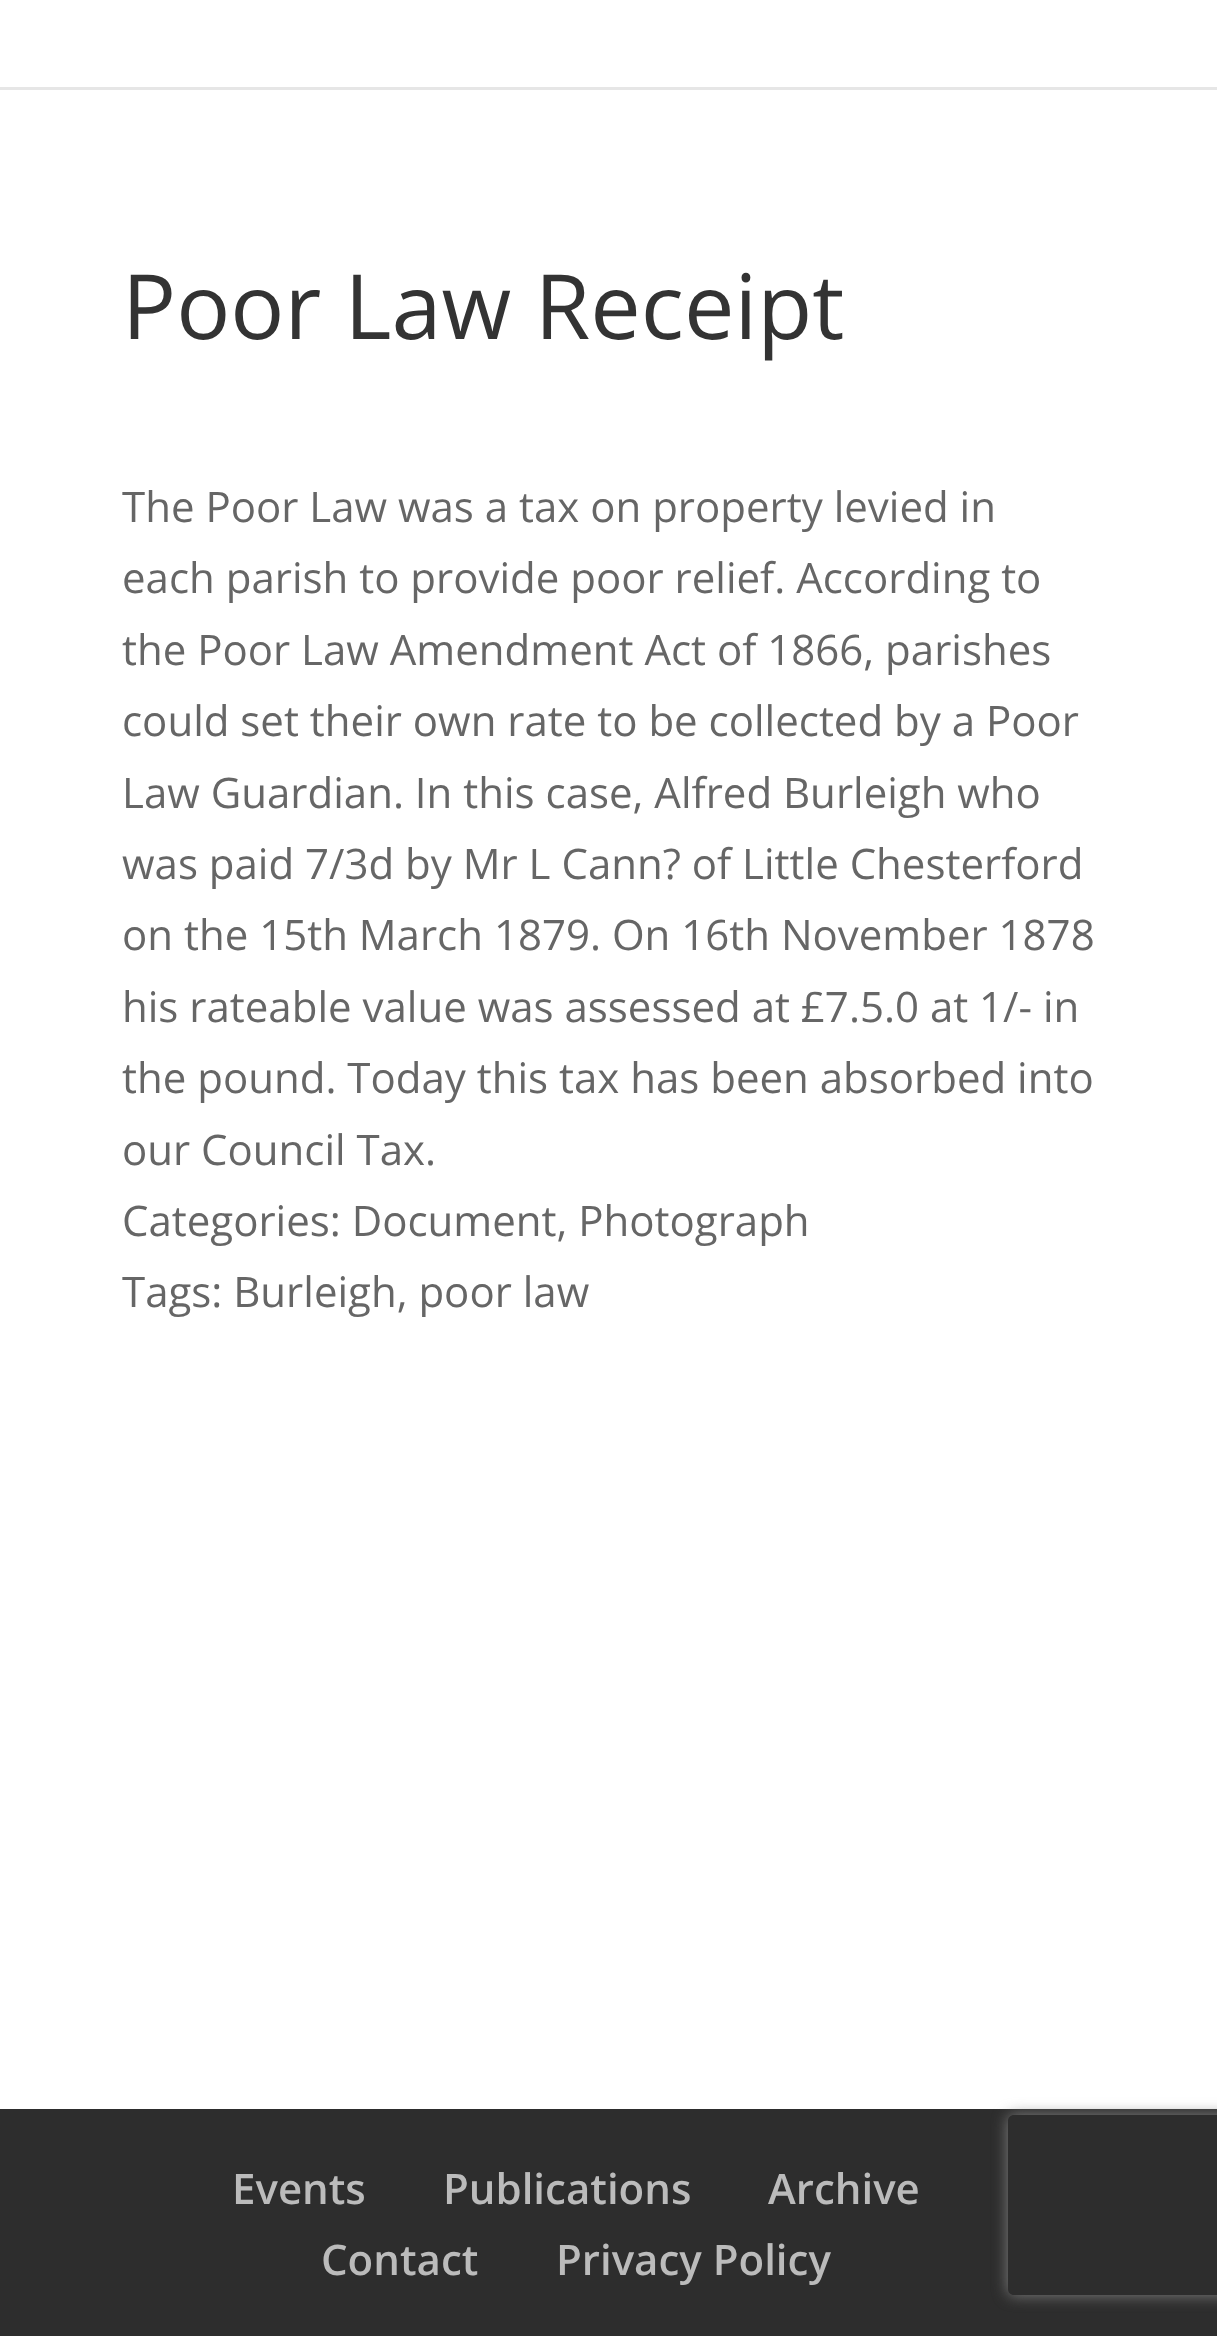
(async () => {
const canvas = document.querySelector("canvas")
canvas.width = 1217
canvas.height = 2336
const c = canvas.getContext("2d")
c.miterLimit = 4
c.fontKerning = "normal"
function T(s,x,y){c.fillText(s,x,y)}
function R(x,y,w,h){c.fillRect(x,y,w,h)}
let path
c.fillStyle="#fff"
R(0,0,1217,2336)
c.fillStyle="#e6e6e6"
R(0,87,1217,3)
c.font="90px Open Sans"
c.fillStyle="#333"
T("Poor Law Receipt",122,339)
c.font="42px Open Sans"
c.fillStyle="#666"
T("The Poor Law was a tax on property levied in",122,522)
T("each parish to provide poor relief. According to",122,593)
T("the Poor Law Amendment Act of 1866, parishes",122,665)
T("could set their own rate to be collected by a Poor",122,736)
T("Law Guardian. In this case, Alfred Burleigh who",122,808)
T("was paid 7/3d by Mr L Cann? of Little Chesterford",122,879)
T("on the 15th March 1879. On 16th November 1878",122,950)
T("his rateable value was assessed at £7.5.0 at 1/- in",122,1022)
T("the pound. Today this tax has been absorbed into",122,1093)
T("our Council Tax.",122,1165)
T("Categories: Document, Photograph",122,1236)
T("Tags: Burleigh, poor law",122,1307)
c.fillStyle="#2d2d2d"
R(0,2109,1217,227)
c.font="600 42px Open Sans"
c.fillStyle="#bbb"
T("Events",232,2204)
T("Publications",443,2204)
T("Archive",768,2204)
T("Contact",321,2275)
T("Privacy Policy",556,2275)
c.save()
path = new Path2D("M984 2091h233v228h-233zm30 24h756c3.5 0 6 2.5 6 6v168c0 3.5-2.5 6-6 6h-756c-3.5 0-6-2.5-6-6v-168c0-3.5 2.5-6 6-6z")
c.clip(path,"evenodd")
c.fillStyle="#808080"
c.filter="blur(7.5px)"
c.beginPath()
c.roundRect(1008,2115,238,180,6)
c.fill()
c.filter="none"
c.restore()
})()
